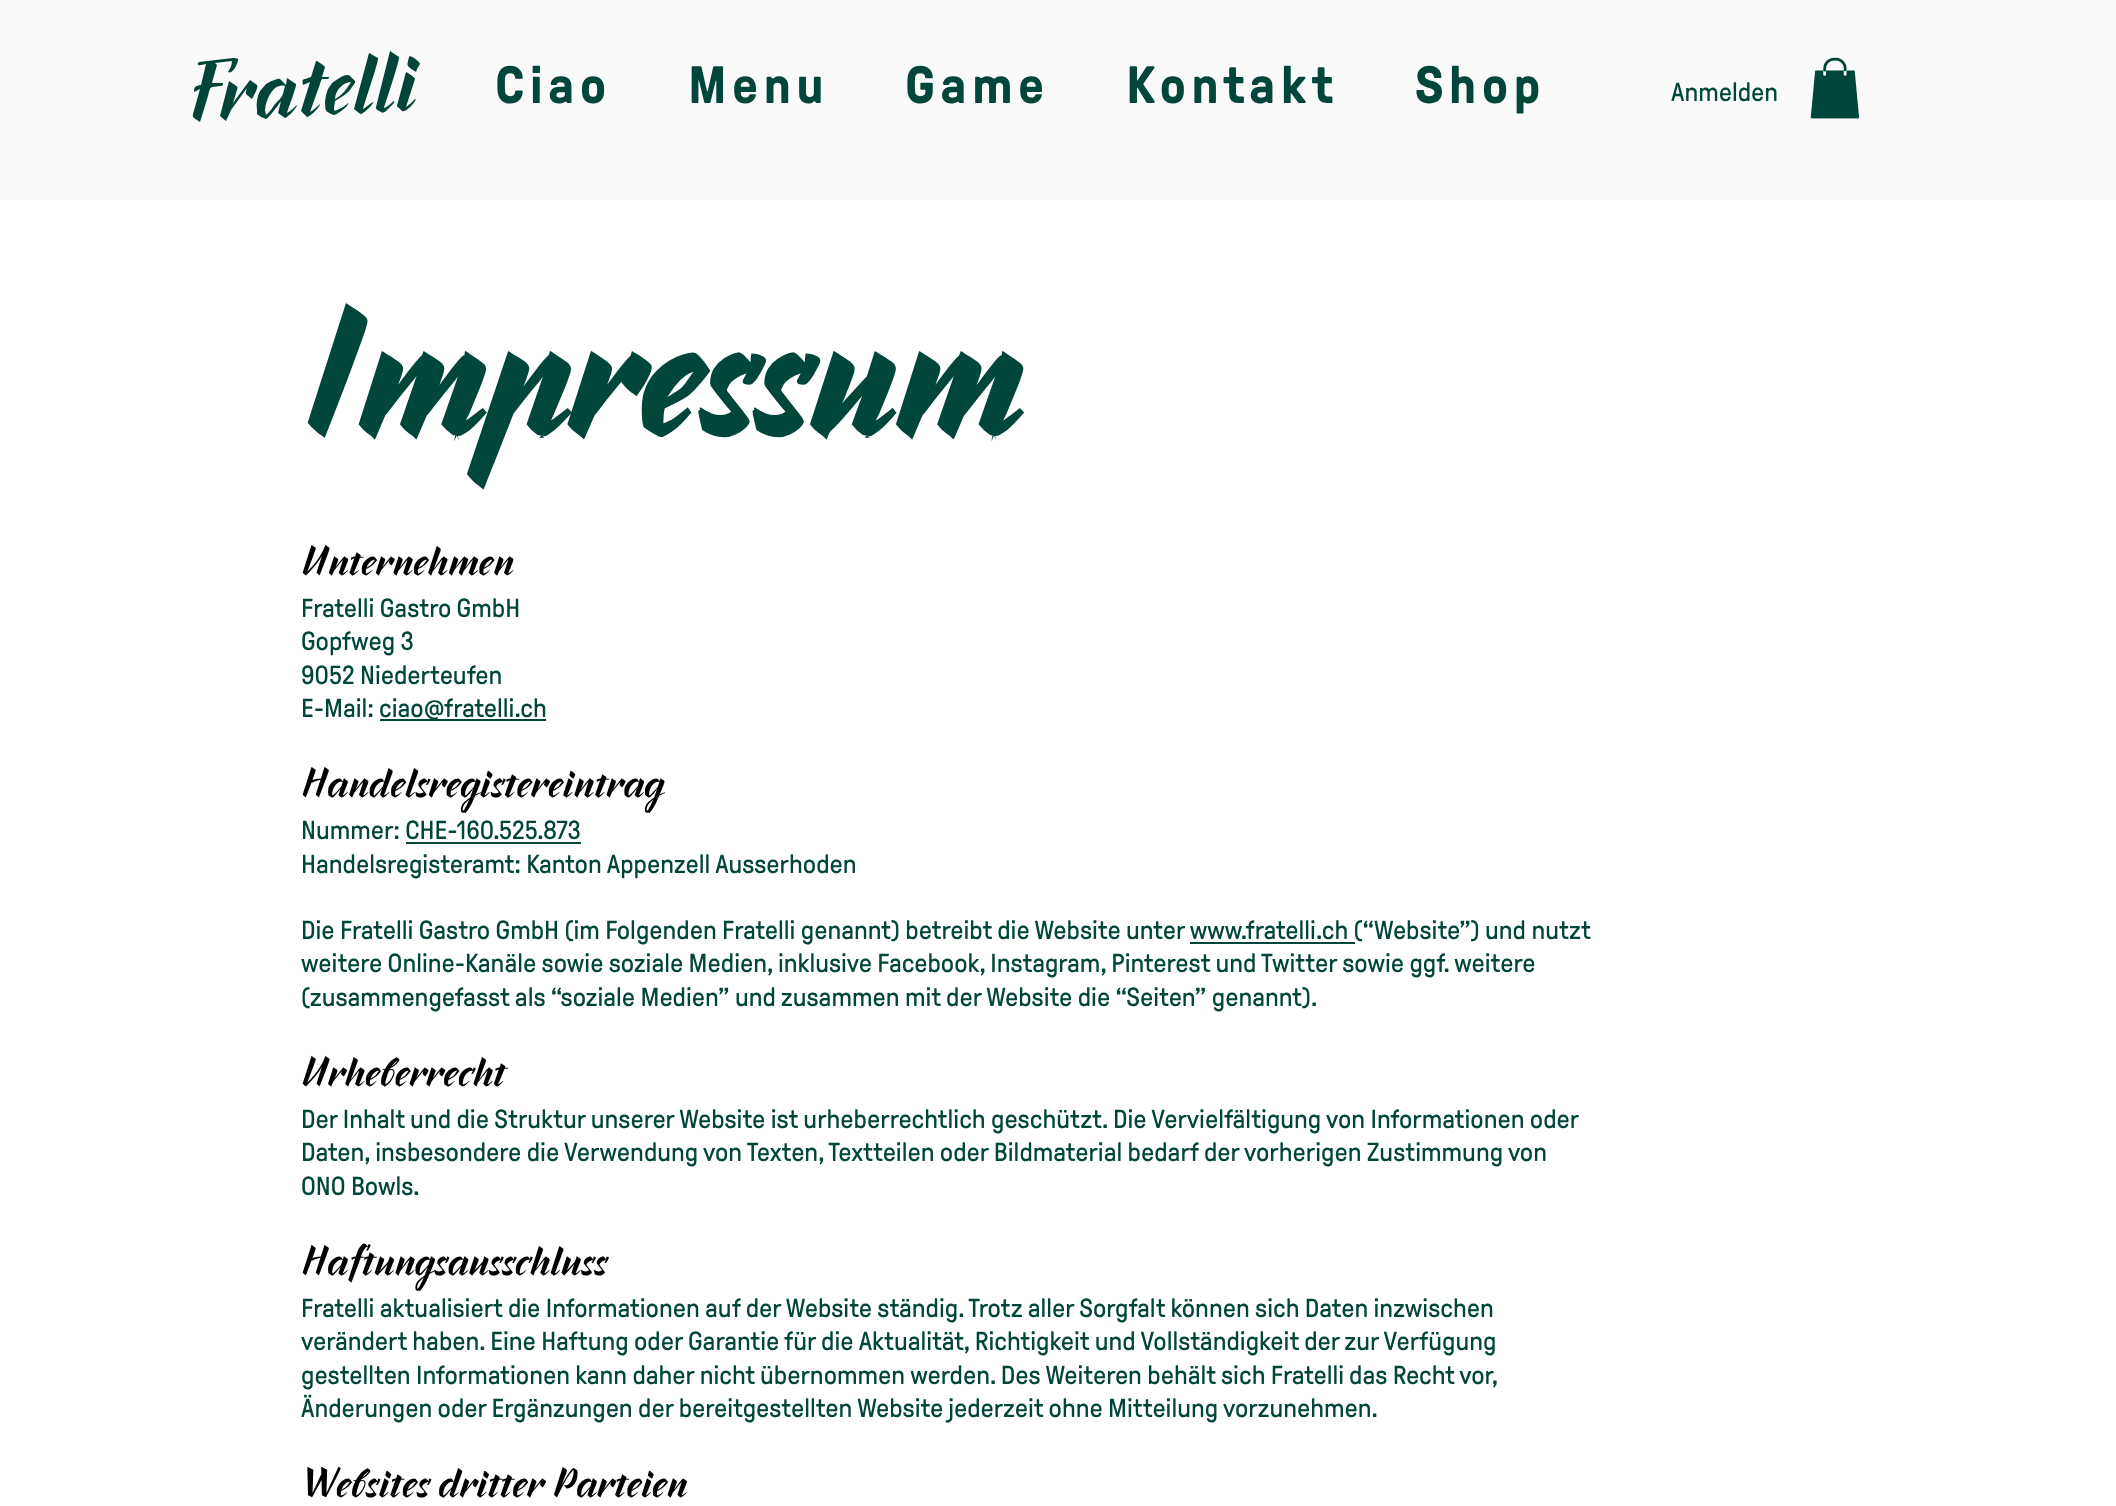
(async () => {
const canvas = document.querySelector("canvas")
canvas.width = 2116
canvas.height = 1506
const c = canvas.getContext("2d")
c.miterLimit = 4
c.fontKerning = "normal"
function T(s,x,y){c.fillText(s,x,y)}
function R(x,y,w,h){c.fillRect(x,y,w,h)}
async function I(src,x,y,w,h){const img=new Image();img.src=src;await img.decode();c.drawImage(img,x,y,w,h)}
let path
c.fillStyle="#fff"
R(0,0,2116,1506)
c.fillStyle="#fafafa"
R(0,0,2116,200)
c.fillStyle="#004538"
path = new Path2D("M390 51l-14 56c-1 2 3 4 5 5c2 2 5-1 7-3c1-1 8-7 6-8c-3 2-6 6-10 7c1-4 16-48 15-51zm-21 2l-15 56l5 4l2 1c2 0 14-11 12-12c-4 2-6 5-10 7c1-5 16-48 15-51zm40 4c-2 9-3 8 4 13c3 2 3 3 4-1l3-5c0-2-10-10-11-7zm-176 1l-34 4l-1 1c-1 3 2 2 3 2l5-1l-5 21c-5 1-7 1-7 7l6-3l-5 18c-3 11-4 9 5 15l8-26c3-11 1-8 12-10c2 0 3 0 3-3h-11l5-18l-2-2l17-2c0 4-2 8-4 11c5 3 11-11 10-13c-1-1-3-1-5-1zm83 3l-5 16l-3 1c-6 2-6 1-5 7l7-3l-9 29l6 6c3 0 13-10 13-13c-4 3-6 6-10 8l10-28c2-6 1-5 6-5c2 0 3 0 3-2h-7l3-10l-2-2l-6-4zm90 11l-8 30c-1 4-2 4 1 6l3 3c3 2 10-6 11-7l2-3c1-1 1-1 0-2c-3 3-6 6-9 8l9-28c0-2-7-6-9-7zm-56 4c-4-4-15 5-18 7l-4 6c-2 5-3 10-3 15c1 8 0 6 6 10l3 1c3 0 16-10 14-12c-3 3-6 5-9 6c-4 2-5 3-5-1l1-7l8-5c3-2 7-5 9-9c5-6 4-5-2-11zm-63 2l-1 7l-6-6c-3-1-12 4-14 5l-6 7c-3 6-4 12-3 19v4l4 3l5 2c3-1 13-15 15-18l-3 12l7 5c2 0 12-10 12-13c-4 3-6 6-10 8c1-4 10-27 9-29zm-37 2h0zm0 0l-17 23l4-13c1-3 1-3-2-5l-6-4l-9 35l6 5l5-11l16-22c-1 3-2 5 0 7l5 4c1-2 7-12 5-14zm101 2c-4 7-9 13-16 17c0-8 8-17 16-17zm-76 6c3-2 7-3 10-2c-3 11-1 9-10 18c-3 4-5 8-9 11l-1-5c1-9 4-16 10-22z")
c.fill(path,"evenodd")
c.letterSpacing="5.25px"
c.font="bold 52.5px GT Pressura"
c.fillStyle="#00463a"
T("Ciao",495,103)
T("Menu",688,103)
T("Game",905,103)
T("Kontakt",1126,103)
T("Shop",1415,103)
c.letterSpacing="0px"
c.font="26.25px GT Pressura"
T("Anmelden",1671,101)
await I("1.png",1810,57,50,62)
c.font="bold 175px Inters"
T("Impressum",301,435)
c.font="42px Inters"
c.fillStyle="#000"
T("Unternehmen",301,575)
c.font="26.25px GT Pressura"
c.fillStyle="#00463a"
T("Fratelli Gastro GmbH",301,617)
T("Gopfweg 3",301,650)
T("9052 Niederteufen",301,684)
T("E-Mail:",301,717)
R(380,719,166,2)
T("ciao@fratelli.ch",379,717)
c.font="42px Inters"
c.fillStyle="#000"
T("Handelsregistereintrag",301,797)
c.font="26.25px GT Pressura"
c.fillStyle="#00463a"
T("Nummer: CHE-160.525.873",301,839)
R(406,842,175,2)
T("Handelsregisteramt: Kanton Appenzell Ausserhoden",301,873)
T("Die Fratelli Gastro GmbH (im Folgenden Fratelli genannt) betreibt die Website unter www.fratelli.ch (“Website”) und nutzt",301,939)
R(1190,942,165,2)
T("weitere Online-Kanäle sowie soziale Medien, inklusive Facebook, Instagram, Pinterest und Twitter sowie ggf. weitere",301,972)
T("(zusammengefasst als “soziale Medien” und zusammen mit der Website die “Seiten” genannt).",301,1006)
c.font="42px Inters"
c.fillStyle="#000"
T("Urheberrecht",301,1086)
c.font="26.25px GT Pressura"
c.fillStyle="#00463a"
T("Der Inhalt und die Struktur unserer Website ist urheberrechtlich geschützt. Die Vervielfältigung von Informationen oder",301,1128)
T("Daten, insbesondere die Verwendung von Texten, Textteilen oder Bildmaterial bedarf der vorherigen Zustimmung von",301,1161)
T("ONO Bowls.",301,1195)
c.font="42px Inters"
c.fillStyle="#000"
T("Haftungsausschluss",301,1275)
c.font="26.25px GT Pressura"
c.fillStyle="#00463a"
T("Fratelli aktualisiert die Informationen auf der Website ständig. Trotz aller Sorgfalt können sich Daten inzwischen",301,1317)
T("verändert haben. Eine Haftung oder Garantie für die Aktualität, Richtigkeit und Vollständigkeit der zur Verfügung",301,1350)
T("gestellten Informationen kann daher nicht übernommen werden. Des Weiteren behält sich Fratelli",301,1384)
T("das Recht vor,",1349,1384)
T("Änderungen oder Ergänzungen der bereitgestellten Website jederzeit ohne Mitteilung vorzunehmen.",301,1417)
c.font="42px Inters"
c.fillStyle="#000"
T("Websites dritter Parteien",301,1497)
})()
